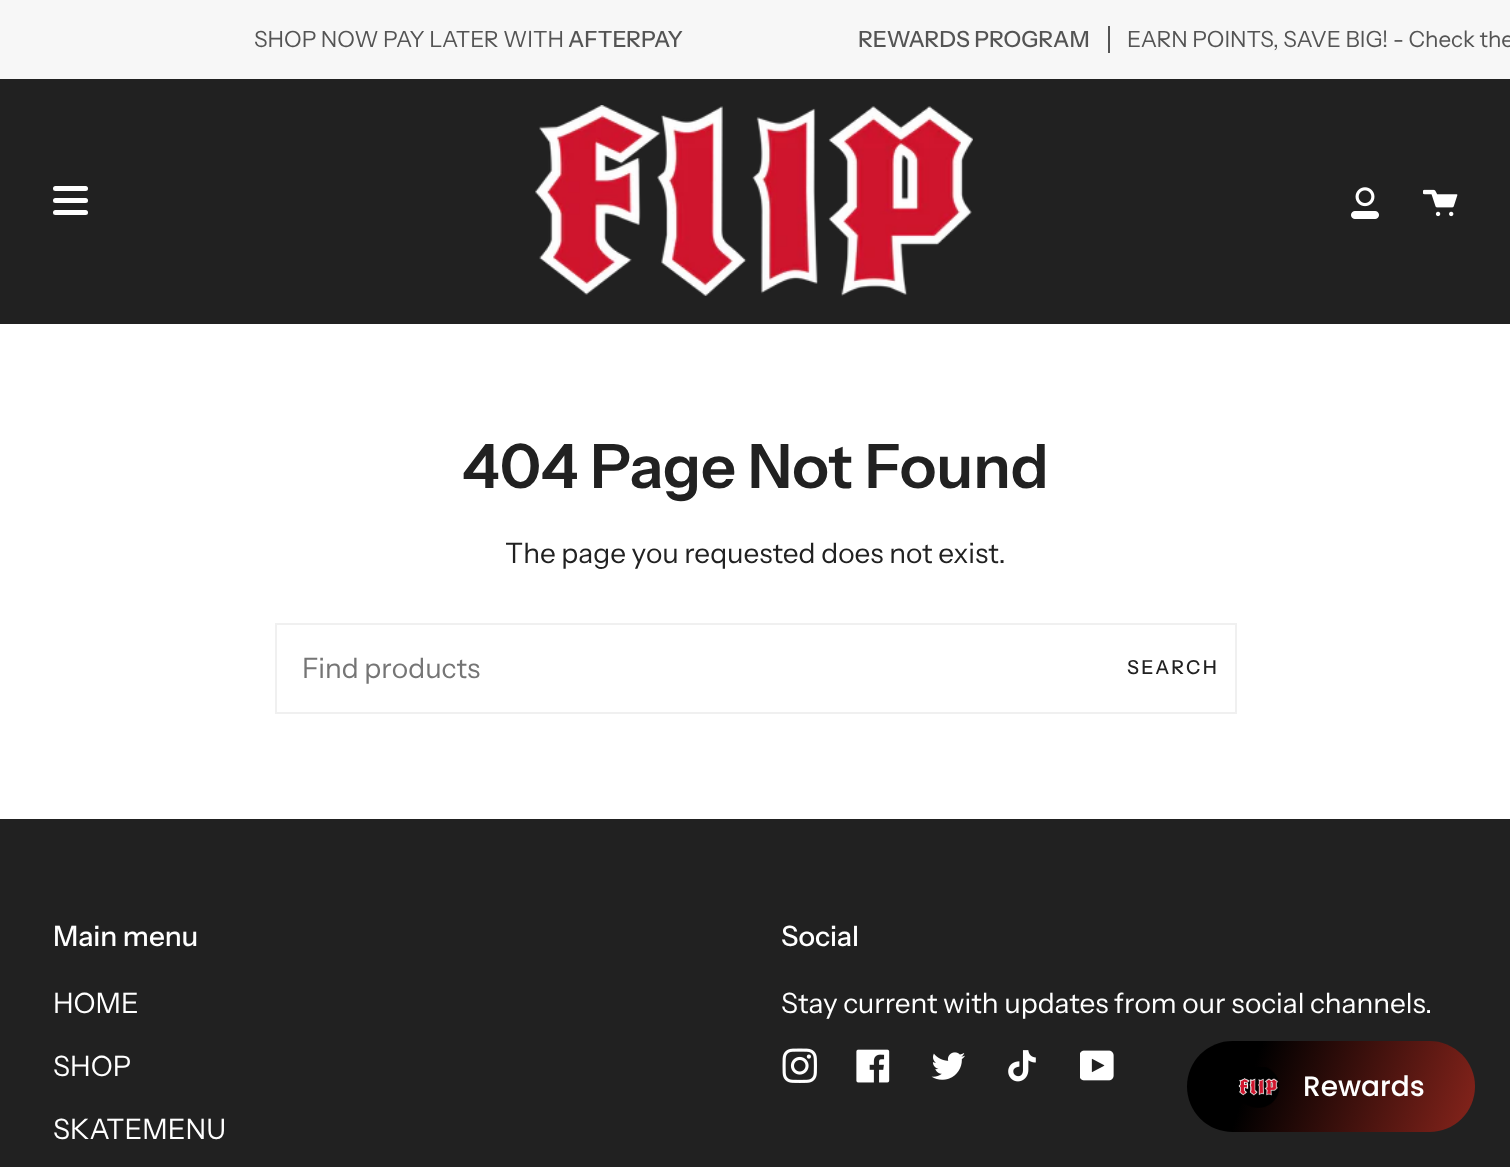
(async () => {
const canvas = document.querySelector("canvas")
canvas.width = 1510
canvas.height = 1167
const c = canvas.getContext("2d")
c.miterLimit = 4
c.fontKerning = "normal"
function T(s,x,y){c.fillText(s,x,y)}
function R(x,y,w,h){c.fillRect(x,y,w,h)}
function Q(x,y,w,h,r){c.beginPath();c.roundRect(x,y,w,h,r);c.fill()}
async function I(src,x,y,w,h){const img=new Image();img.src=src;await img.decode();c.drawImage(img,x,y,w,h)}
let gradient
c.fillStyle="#fff"
R(0,0,1510,1167)
c.fillStyle="#f7f7f7"
R(0,0,1510,79)
c.font="22.4px Instrument Sans"
c.fillStyle="#545454"
T("SHOP NOW PAY LATER WITH",254,47)
c.font="500 22.4px Instrument Sans"
T("AFTERPAY",568,47)
T("REWARDS PROGRAM",858,47)
R(1108,26,2,27)
c.font="22.4px Instrument Sans"
T("EARN POINTS, SAVE BIG! - Check the",1127,47)
c.fillStyle="#212121"
R(0,79,1510,245)
c.fillStyle="#fff"
c.beginPath()
c.roundRect(53,186,29,5,[2.5,0,0,2.5])
c.fill()
c.beginPath()
c.roundRect(58,186,30,5,[0,2.5,2.5,0])
c.fill()
c.beginPath()
c.roundRect(53,198,29,5,[2.5,0,0,2.5])
c.fill()
c.beginPath()
c.roundRect(58,198,30,5,[0,2.5,2.5,0])
c.fill()
c.beginPath()
c.roundRect(53,210,29,5,[2.5,0,0,2.5])
c.fill()
c.beginPath()
c.roundRect(58,210,30,5,[0,2.5,2.5,0])
c.fill()
await I("1.png",535,105,438,191)
await I("2.png",1351,187,28,32)
await I("3.png",1423,189,35,28)
c.font="600 61.25px Instrument Sans"
c.fillStyle="#212121"
T("404 Page Not Found",462,488)
c.font="28px Instrument Sans"
T("The page you requested does not exist.",505,563)
c.strokeStyle="#f0f0f0"
c.lineWidth=2
c.strokeRect(276,624,960,89)
c.fillStyle="#757575"
T("Find products",302,678)
c.letterSpacing="2.25px"
c.font="500 19.25px Instrument Sans"
c.fillStyle="#212121"
T("SEARCH",1127,674)
R(0,819,1510,348)
c.letterSpacing="0px"
c.font="500 28px Instrument Sans"
c.fillStyle="#fff"
T("Main menu",53,946)
c.font="28px Instrument Sans"
T("HOME",53,1013)
T("SHOP",53,1076)
T("SKATEMENU",53,1139)
c.font="500 28px Instrument Sans"
T("Social",781,946)
c.font="28px Instrument Sans"
T("Stay current with updates from our social channels.",781,1013)
await I("4.png",782,1048,35,35)
await I("5.png",856,1049,34,34)
await I("6.png",931,1052,34,28)
await I("7.png",1008,1050,28,32)
await I("8.png",1080,1050,34,31)
gradient = c.createLinearGradient(1188,1036,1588,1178)
gradient.addColorStop(.17,"#000")
gradient.addColorStop(1,"#ce372a")
c.fillStyle = gradient
Q(1187,1041,288,91,45.5)
await I("9.png",1238,1067,42,41)
c.font="500 28px Poppins"
c.fillStyle="#fff"
T("Rewards",1303,1096)
})()
